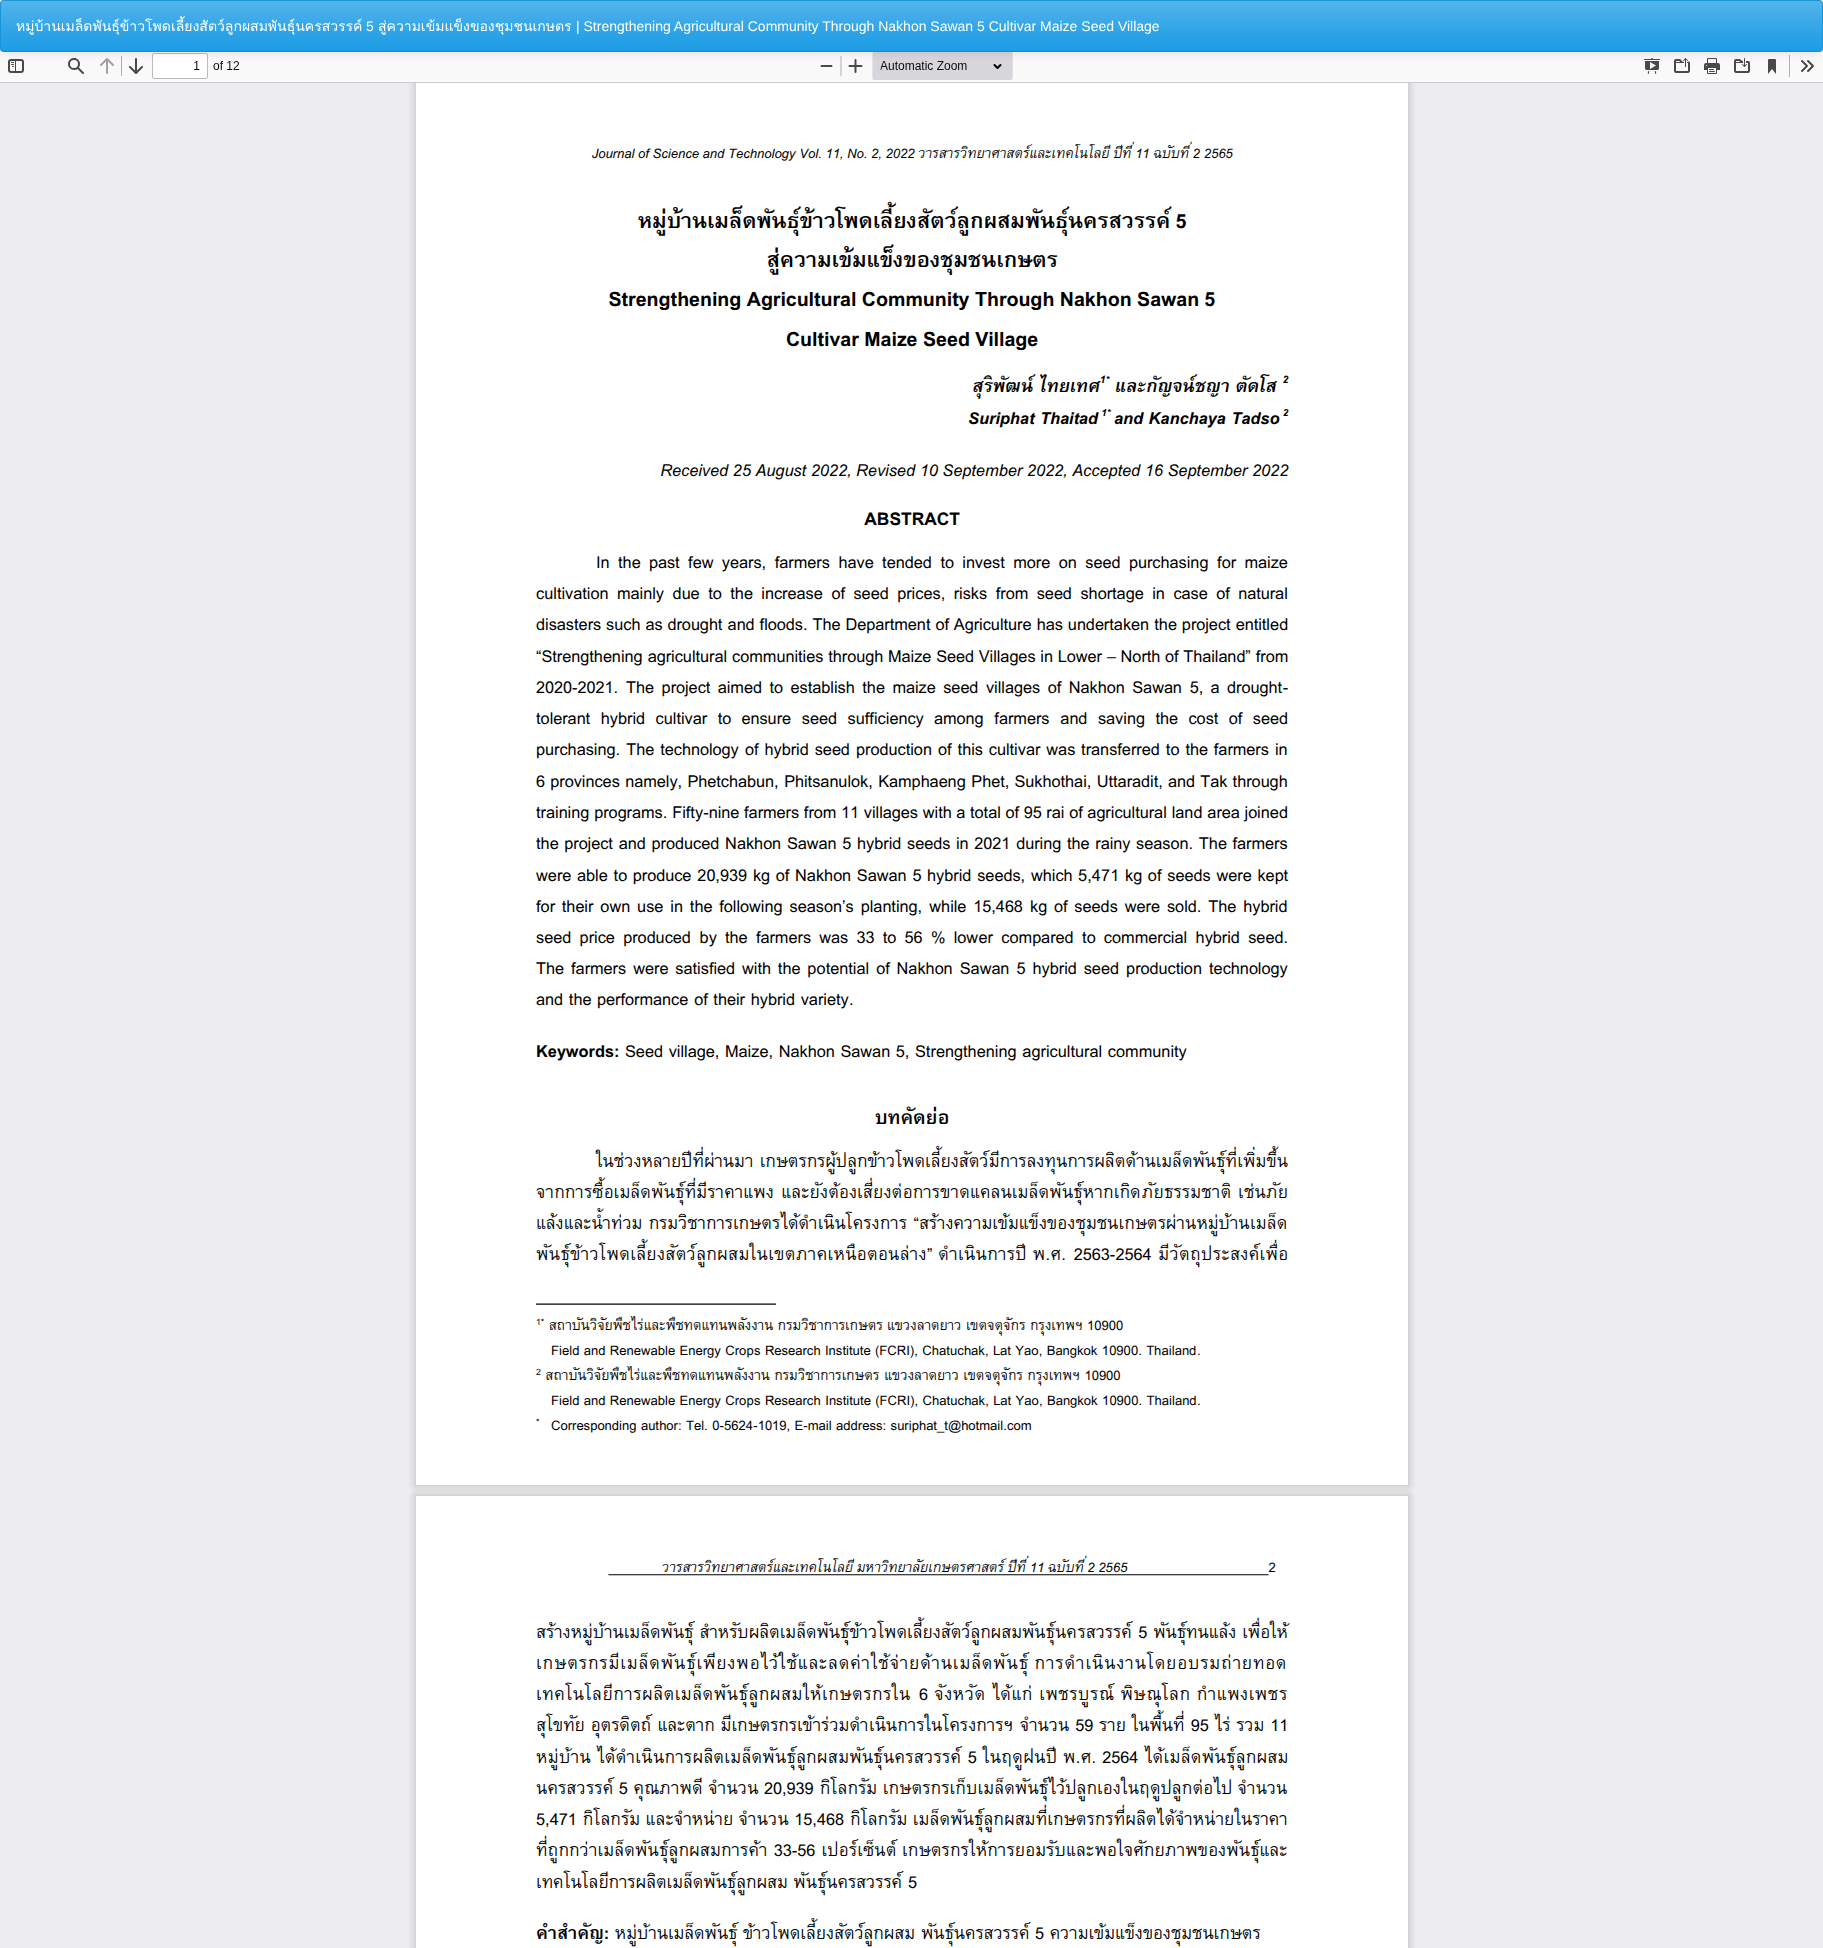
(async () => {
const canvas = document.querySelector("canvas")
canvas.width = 1823
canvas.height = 1948
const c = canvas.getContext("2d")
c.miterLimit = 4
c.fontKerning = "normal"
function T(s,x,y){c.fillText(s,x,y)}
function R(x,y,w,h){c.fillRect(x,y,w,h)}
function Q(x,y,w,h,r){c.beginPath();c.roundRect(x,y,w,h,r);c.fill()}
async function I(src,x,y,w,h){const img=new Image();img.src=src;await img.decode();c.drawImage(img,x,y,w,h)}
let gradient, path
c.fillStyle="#fff"
R(0,0,1823,1948)
await I("1.png",0,50,1823,1898)
c.fillStyle="#0000001a"
c.filter="blur(5px)"
c.beginPath()
c.roundRect(0,1,1823,52,4)
c.fill()
c.filter="none"
c.fillStyle="#2fa4e7"
Q(0,0,1823,52,4)
c.save()
c.beginPath()
c.roundRect(0,0,1823,52,4)
c.clip()
gradient = c.createLinearGradient(912,1,912,51)
gradient.addColorStop(0,"#54b4eb")
gradient.addColorStop(.6,"#2fa4e7")
gradient.addColorStop(1,"#1d9ce5")
c.fillStyle = gradient
R(1,1,1821,50)
c.restore()
path = new Path2D("M1821.5 50.5l-2.5 1h-1815l-2.5-1")
c.strokeStyle="#178acc"
c.stroke(path)
path = new Path2D("M1.5 50.5c-.5-.5-1-1.5-1-2.5v-44c0-1 .5-2 1-2.5c.5-.5 1.5-1 2.5-1h1815c1 0 2 .5 2.5 1c.5 .5 1 1.5 1 2.5v44c0 1-.5 2-1 2.5")
c.strokeStyle="#1995dc"
c.stroke(path)
c.font="14px Loma"
c.fillStyle="#fff"
T("หมู่บ้านเมล็ดพันธุ์ข้าวโพดเลี้ยงสัตว์ลูกผสมพันธุ์นครสวรรค์",16,31)
c.font="14px Liberation Sans"
T("5",366,31)
c.font="14px Loma"
T("สู่ความเข้มแข็งของชุมชนเกษตร",378,31)
c.font="14px Liberation Sans"
T("| Strengthening Agricultural Community Through Nakhon Sawan 5 Cultivar Maize Seed Village",576,31)
})()
